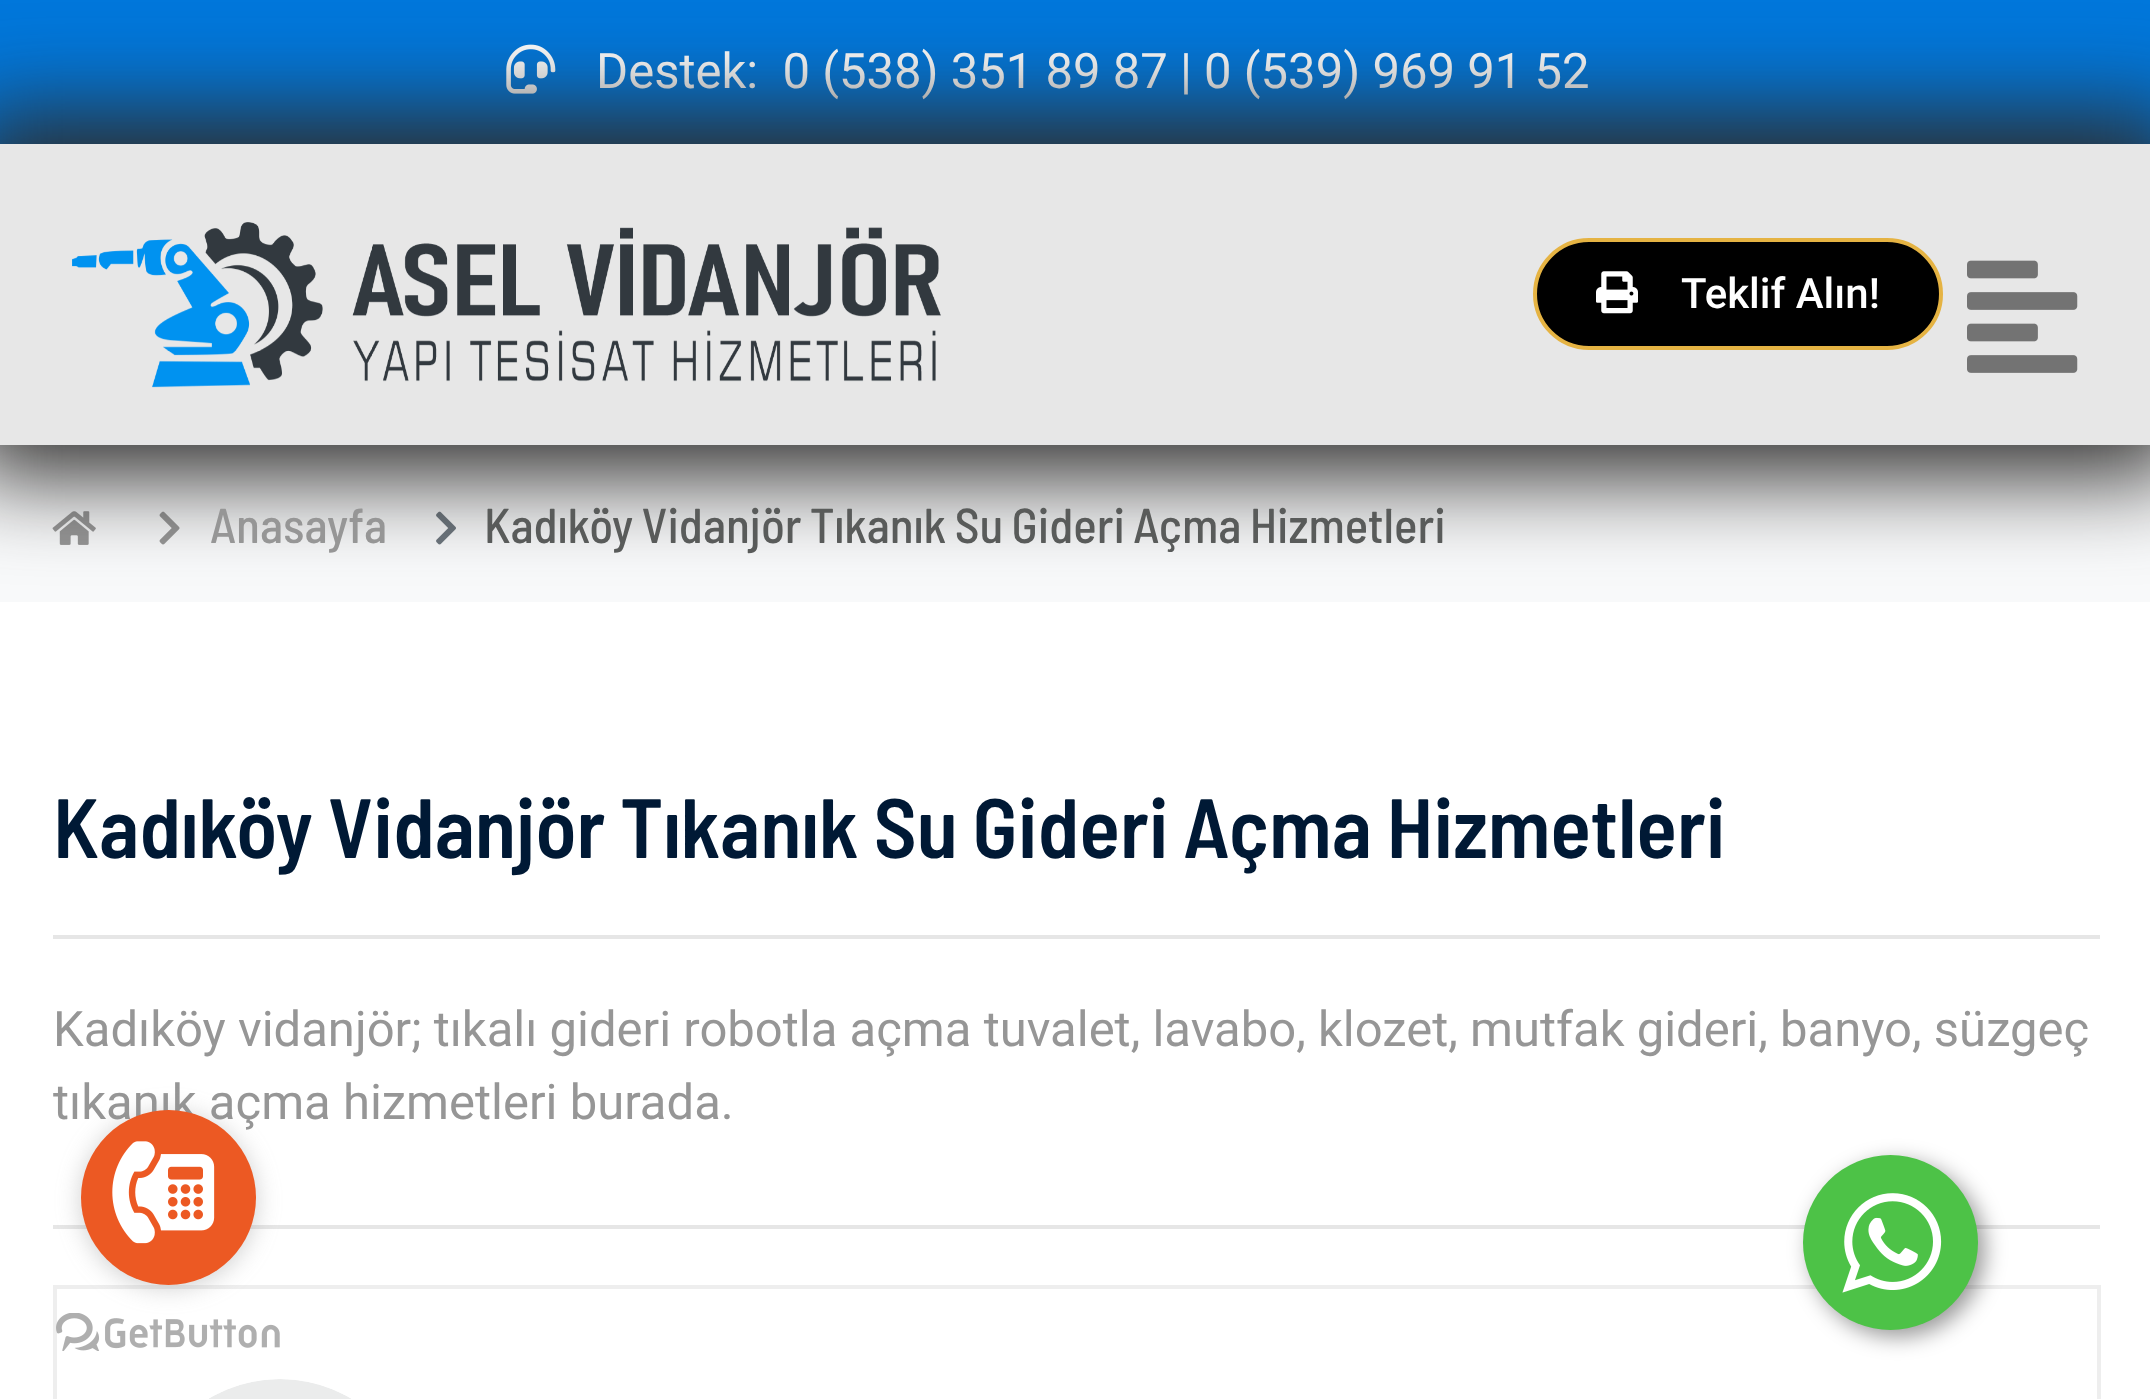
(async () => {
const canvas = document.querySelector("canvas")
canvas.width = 2150
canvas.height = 1399
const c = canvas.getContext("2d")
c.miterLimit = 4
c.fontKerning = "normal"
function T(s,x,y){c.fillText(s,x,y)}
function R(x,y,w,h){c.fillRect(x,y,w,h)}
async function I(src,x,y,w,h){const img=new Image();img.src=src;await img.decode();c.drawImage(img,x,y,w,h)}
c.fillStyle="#fff"
R(0,0,2150,1399)
c.fillStyle="#0077db"
R(0,0,2150,144)
await I("1.png",506,44,50,50)
c.font="49px Roboto"
c.fillStyle="#fff"
T("Destek:  0 (538) 351 89 87 | 0 (539) 969 91 52",596,88)
c.fillStyle="#f8f9fa"
R(0,445,2150,157)
await I("5.png",52,511,44,34)
await I("6.png",159,511,21,34)
await I("7.png",436,511,20,34)
c.fillStyle="#2d2c2b"
c.filter="blur(45.5px)"
c.beginPath()
c.rect(-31,112,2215,364)
c.fill()
c.filter="none"
c.fillStyle="#e7e7e7"
R(0,144,2150,301)
await I("2.png",72,222,869,166)
c.fillStyle="#000"
c.beginPath()
c.roundRect(1535,240,406,108,54)
c.fill()
c.strokeStyle="#e5b343"
c.lineWidth=4
c.stroke()
await I("3.png",1596,271,42,43)
c.font="500 42px Roboto"
c.fillStyle="#fff"
T("Teklif Alın!",1681,308)
await I("4.png",1967,260,111,113)
c.font="500 49px Barlow Semi Condensed"
c.fillStyle="#969696"
T("Anasayfa",210,543)
c.wordSpacing="-1.5px"
c.fillStyle="#595b5a"
T("Kadıköy Vidanjör Tıkanık Su Gideri Açma Hizmetleri",484,543)
c.wordSpacing="-2px"
c.font="600 84px Barlow Semi Condensed"
c.fillStyle="#001935"
T("Kadıköy Vidanjör Tıkanık Su Gideri Açma Hizmetleri",53,858)
c.fillStyle="#e6e6e6"
R(53,935,2047,4)
c.wordSpacing="0px"
c.font="49px Roboto"
c.fillStyle="#969696"
T("Kadıköy vidanjör; tıkalı gideri robotla açma tuvalet, lavabo, klozet, mutfak gideri, banyo, süzgeç",53,1046)
T("tıkanık açma hizmetleri burada.",53,1119)
c.fillStyle="#e6e6e6"
R(53,1225,2047,4)
c.fillStyle="#eee"
R(53,1285,2047,4)
R(2097,1285,4,114)
R(53,1285,4,114)
await I("8.png",209,1379,142,20)
await I("10.png",56,1313,224,38)
c.fillStyle="#88888866"
c.filter="blur(12px)"
c.beginPath()
c.roundRect(81,1113,175,175,87.5)
c.fill()
c.filter="none"
c.fillStyle="#ec5923"
c.beginPath()
c.arc(168.5,1197.5,87.5,0,7)
c.fill()
await I("9.png",112,1141,103,103)
c.fillStyle="#00000066"
c.filter="blur(10.5px)"
c.beginPath()
c.roundRect(1810,1162,175,175,87.5)
c.fill()
c.filter="none"
c.fillStyle="#4dc247"
c.beginPath()
c.arc(1890.5,1242.5,87.5,0,7)
c.fill()
await I("11.png",1842,1193,100,100)
})()
